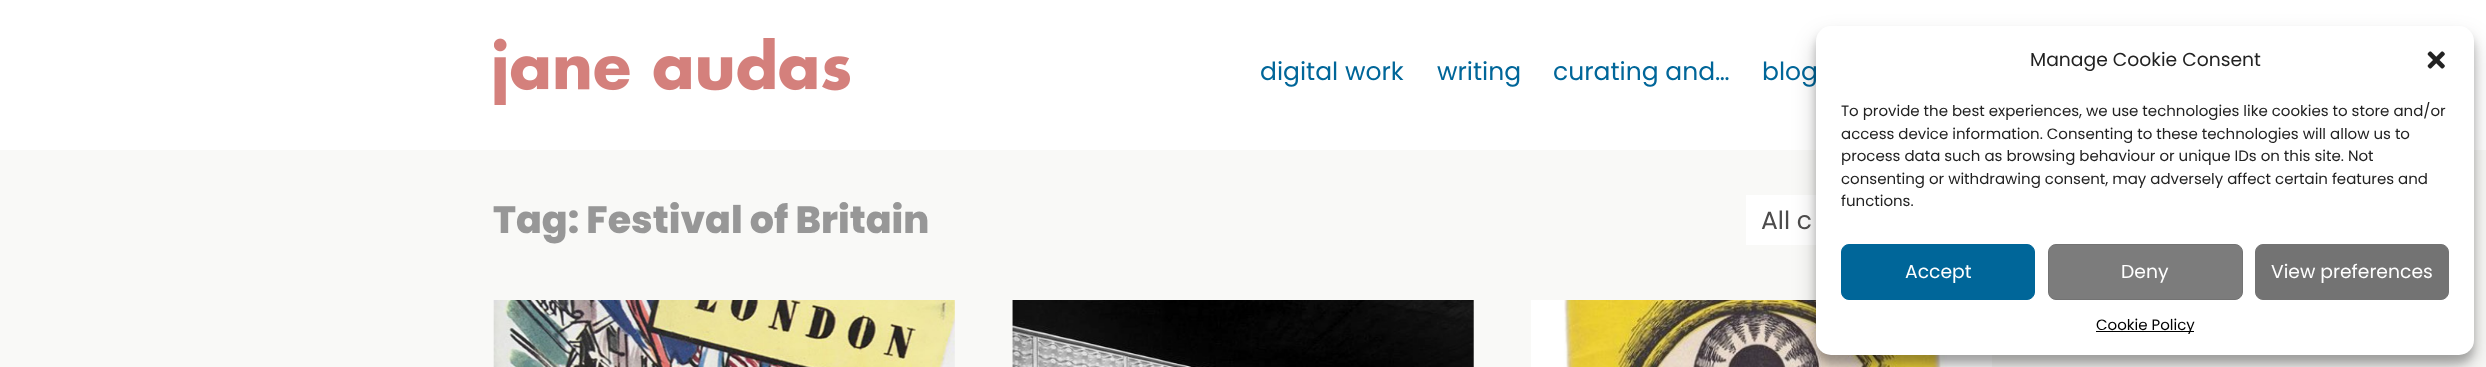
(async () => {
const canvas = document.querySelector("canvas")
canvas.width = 2486
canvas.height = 367
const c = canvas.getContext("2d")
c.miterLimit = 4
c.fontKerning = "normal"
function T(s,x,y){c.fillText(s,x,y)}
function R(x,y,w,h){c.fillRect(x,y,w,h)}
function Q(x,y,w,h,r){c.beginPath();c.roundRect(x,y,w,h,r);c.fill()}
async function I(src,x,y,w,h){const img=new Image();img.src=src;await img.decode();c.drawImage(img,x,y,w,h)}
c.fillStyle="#f9f9f7"
R(0,0,2486,367)
c.fillStyle="#fff"
R(0,0,2486,150)
await I("1.png",494,38,356,67)
c.font="25px Poppins"
c.fillStyle="#069"
T("digital work",1260,80)
T("writing",1437,80)
T("curating and…",1553,80)
T("blog",1762,80)
c.fillStyle="#fff"
R(1746,195,70,50)
await I("5.png",1531,300,461,67)
c.fillStyle="#0000003b"
c.filter="blur(4px)"
c.beginPath()
c.roundRect(1816,34,658,329,15)
c.fill()
c.filter="none"
c.fillStyle="#00000030"
c.filter="blur(12.5px)"
c.beginPath()
c.roundRect(1816,39,658,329,15)
c.fill()
c.filter="none"
c.fillStyle="#fff"
Q(1816,26,658,329,15)
c.font="18.75px Poppins"
c.fillStyle="#222"
T("Manage Cookie Consent",2030,66)
await I("2.png",2427,51,18,18)
c.font="15px Poppins"
T("To provide the best experiences, we use technologies like cookies to store and/or",1841,116)
T("access device information. Consenting to these technologies will allow us to",1841,139)
T("process data such as browsing behaviour or unique IDs on this site. Not",1841,161)
T("consenting or withdrawing consent, may adversely affect certain features and",1841,184)
T("functions.",1841,206)
c.fillStyle="#069"
c.beginPath()
c.roundRect(1841.5,244.5,193,55,7.5)
c.fill()
c.strokeStyle="#069"
c.stroke()
c.font="18.75px Poppins"
c.fillStyle="#fff"
T("Accept",1905,278)
c.fillStyle="#7c7c7c"
c.beginPath()
c.roundRect(2048.5,244.5,194,55,7.5)
c.fill()
c.strokeStyle="#737373"
c.stroke()
c.fillStyle="#fff"
T("Deny",2121,278)
c.fillStyle="#737373"
c.beginPath()
c.roundRect(2255.5,244.5,193,55,7.5)
c.fill()
c.stroke()
c.fillStyle="#fff"
T("View preferences",2271,278)
c.fillStyle="#000"
R(2096,331,98,1)
c.font="15px Poppins"
T("Cookie Policy",2096,330)
c.font="800 38px Poppins"
c.fillStyle="#979797"
T("Tag: Festival of Britain",493,233)
c.font="25px Poppins"
c.fillStyle="#4c4b4b"
T("All c",1761,229)
await I("3.png",493,300,462,67)
await I("4.png",1012,300,462,67)
})()
